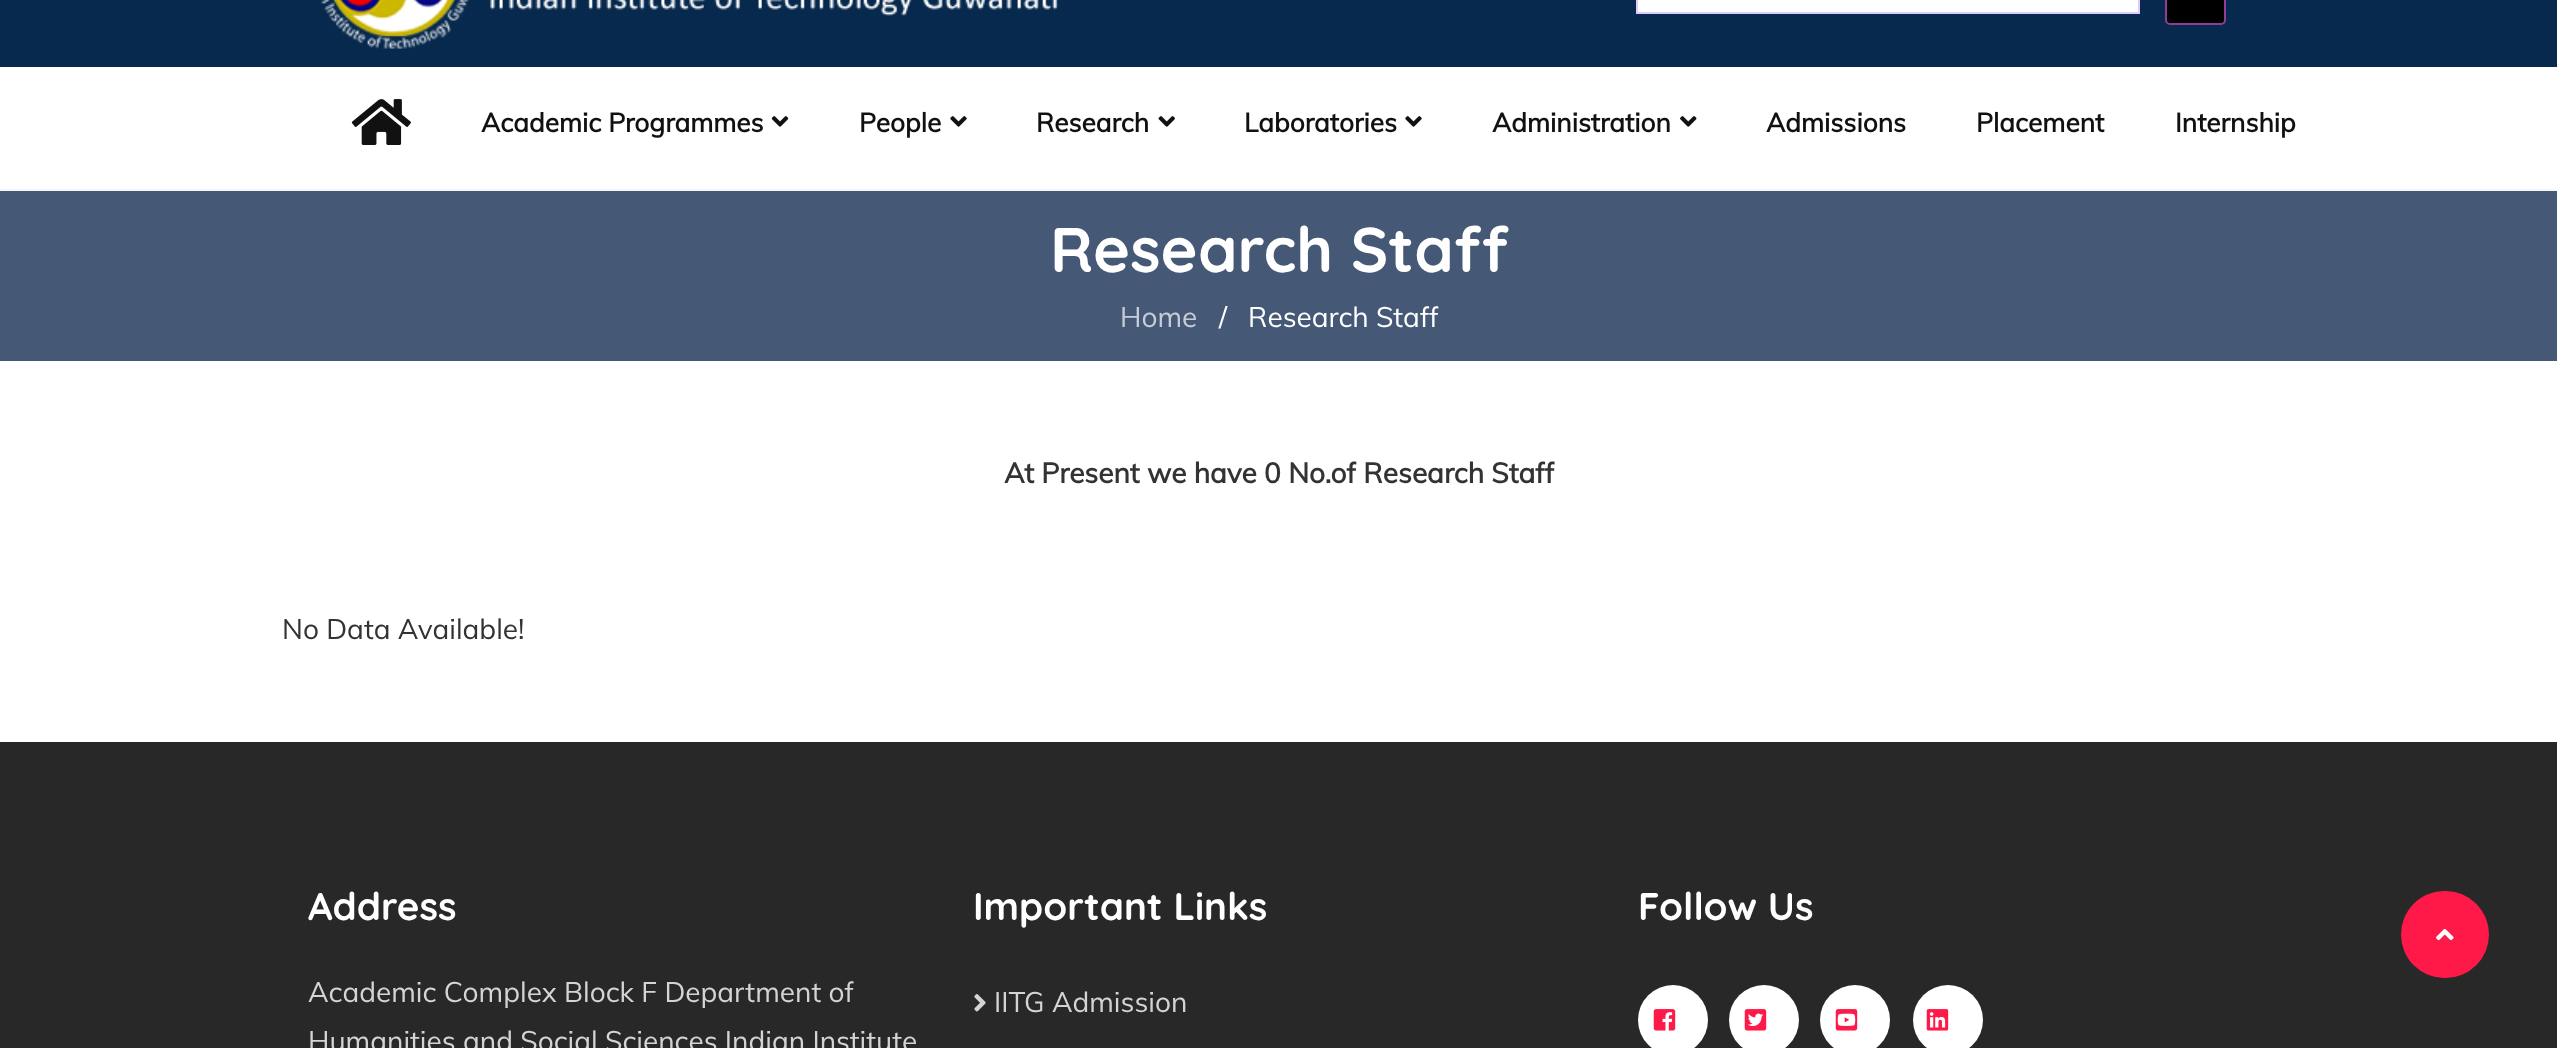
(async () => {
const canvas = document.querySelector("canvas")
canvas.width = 2557
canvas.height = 1048
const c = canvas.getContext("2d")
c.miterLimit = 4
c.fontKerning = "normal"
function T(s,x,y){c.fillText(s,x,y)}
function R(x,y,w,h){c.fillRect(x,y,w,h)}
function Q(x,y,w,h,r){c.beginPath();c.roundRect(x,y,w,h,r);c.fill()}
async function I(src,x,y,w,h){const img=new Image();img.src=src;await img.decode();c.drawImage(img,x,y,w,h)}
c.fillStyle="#fff"
R(0,0,2557,1048)
c.fillStyle="#07294d"
R(0,0,2557,67)
await I("1.png",320,0,738,49)
c.fillStyle="#fff"
c.beginPath()
c.rect(1637,-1,502,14)
c.fill()
c.strokeStyle="#decaff"
c.lineWidth=2
c.stroke()
c.fillStyle="#000"
c.beginPath()
c.roundRect(2166,-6,59,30,4)
c.fill()
c.strokeStyle="#923c99"
c.stroke()
c.fillStyle="#f5f7fa"
R(0,189,2557,2)
await I("2.png",351,99,60,46)
c.font="bold 26.25px Muli"
c.fillStyle="#111"
T("Academic Programmes",481,132)
await I("3.png",771,116,18,11)
T("People",859,132)
await I("4.png",950,116,17,11)
T("Research",1036,132)
await I("5.png",1158,116,17,11)
T("Laboratories",1244,132)
await I("4.png",1405,116,17,11)
T("Administration",1492,132)
await I("6.png",1680,116,17,11)
T("Admissions",1766,132)
T("Placement",1976,132)
T("Internship",2175,132)
c.fillStyle="#455876"
R(0,191,2557,170)
c.font="bold 63px Quicksand"
c.fillStyle="#fff"
T("Research Staff",1050,272)
c.font="28px Muli"
c.fillStyle="#c7cdd6"
T("Home",1120,327)
c.fillStyle="#fff"
T("/",1219,327)
T("Research Staff",1248,327)
c.font="bold 28px Muli"
c.fillStyle="#333"
T("At Present we have 0 No.of Research Staff",1004,483)
c.font="28px Muli"
T("No Data Available!",282,639)
c.fillStyle="#282828"
R(0,742,2557,306)
c.font="bold 38.5px Quicksand"
c.fillStyle="#fff"
T("Address",308,920)
c.font="28px Muli"
c.fillStyle="#d4d4d4"
T("Academic Complex Block F Department of",308,1002)
T("Humanities and Social Sciences Indian Institute",308,1051)
c.font="bold 38.5px Quicksand"
c.fillStyle="#fff"
T("Important Links",973,920)
await I("7.png",974,994,12,18)
c.font="28px Muli"
c.fillStyle="#d4d4d4"
T("IITG Admission",994,1012)
c.font="bold 38.5px Quicksand"
c.fillStyle="#fff"
T("Follow Us",1638,920)
c.beginPath()
c.arc(1673,1020,35,0,7)
c.fill()
await I("8.png",1653,1009,23,22)
c.beginPath()
c.arc(1764,1020,35,0,7)
c.fill()
await I("9.png",1744,1009,23,22)
c.beginPath()
c.arc(1855,1020,35,0,7)
c.fill()
await I("10.png",1835,1009,23,22)
c.beginPath()
c.arc(1948,1020,35,0,7)
c.fill()
await I("11.png",1926,1009,23,22)
c.fillStyle="#ff1949"
Q(2401,891,88,87,43.5)
await I("12.png",2436,928,18,13)
})()
